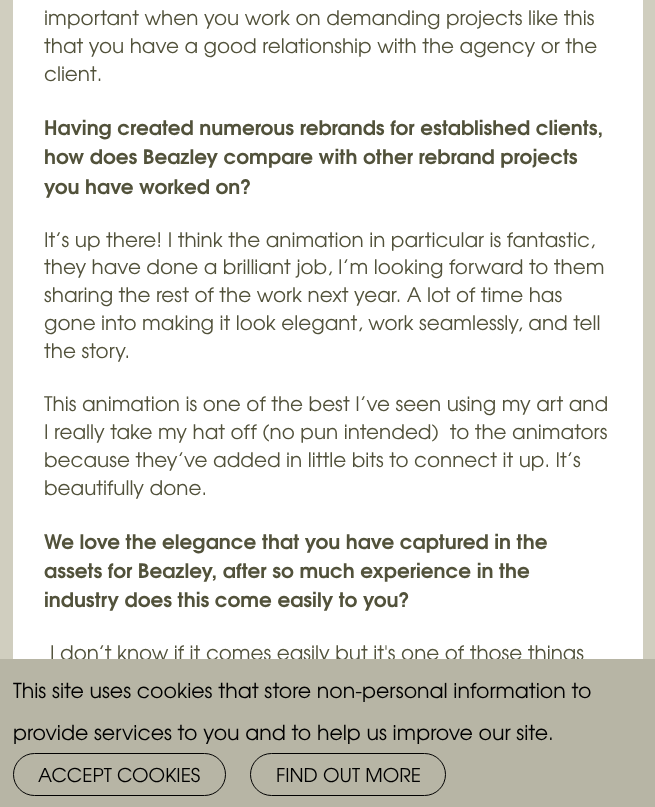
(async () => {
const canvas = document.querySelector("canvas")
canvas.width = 655
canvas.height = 807
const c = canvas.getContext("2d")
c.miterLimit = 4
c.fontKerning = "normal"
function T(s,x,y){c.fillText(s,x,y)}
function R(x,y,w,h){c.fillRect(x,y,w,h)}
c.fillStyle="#d0cebf"
R(0,0,655,807)
c.fillStyle="#fff"
R(13,0,630,659)
c.font="19.95px TeX Gyre Adventor"
c.fillStyle="#52523b"
T("important when you work on demanding projects like this",44,25)
T("that you have a good relationship with the agency or the",44,53)
T("client.",44,81)
c.font="bold 19.95px TeX Gyre Adventor"
T("Having created numerous rebrands for established clients,",44,135)
T("how does Beazley compare with other rebrand projects",44,164)
T("you have worked on?",44,194)
c.font="19.95px TeX Gyre Adventor"
T("It’s up there! I think the animation in particular is fantastic,",44,247)
T("they have done a brilliant job, I’m looking forward to them",44,274)
T("sharing the rest of the work next year. A lot of time has",44,302)
T("gone into making it look elegant, work seamlessly, and tell",44,330)
T("the story.",44,358)
T("This animation is one of the best I’ve seen using my art and",44,411)
T("I really take my hat off (no pun intended)  to the animators",44,439)
T("because they’ve added in little bits to connect it up. It’s",44,467)
T("beautifully done.",44,495)
c.font="bold 19.95px TeX Gyre Adventor"
T("We love the elegance that you have captured in the",44,549)
T("assets for Beazley, after so much experience in the",44,578)
T("industry does this come easily to you?",44,607)
c.font="19.95px TeX Gyre Adventor"
T("I don’t know if it comes easily but it's one of those things",50,660)
c.fillStyle="#b7b5a5"
R(0,659,655,148)
c.font="20.5px TeX Gyre Adventor"
c.fillStyle="#000"
T("This site uses cookies that store non-personal information to",13,698)
T("provide services to you and to help us improve our site.",13,740)
c.beginPath()
c.roundRect(13.5,753.5,212,42,21)
c.strokeStyle="#000"
c.stroke()
c.font="19px TeX Gyre Adventor"
T("ACCEPT COOKIES",38,782)
c.beginPath()
c.roundRect(250.5,753.5,195,42,21)
c.stroke()
T("FIND OUT MORE",276,782)
})()
